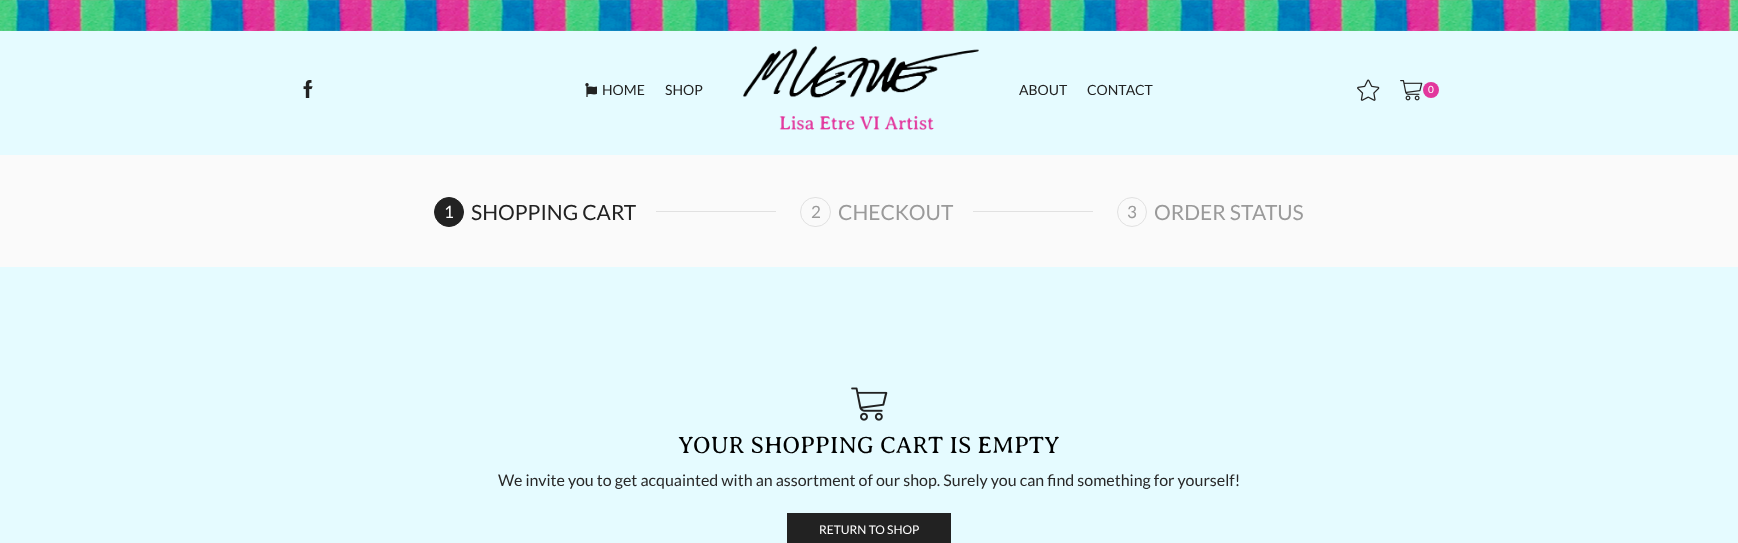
(async () => {
const canvas = document.querySelector("canvas")
canvas.width = 1738
canvas.height = 543
const c = canvas.getContext("2d")
c.miterLimit = 4
c.fontKerning = "normal"
function T(s,x,y){c.fillText(s,x,y)}
function R(x,y,w,h){c.fillRect(x,y,w,h)}
async function I(src,x,y,w,h){const img=new Image();img.src=src;await img.decode();c.drawImage(img,x,y,w,h)}
c.fillStyle="#e5fbff"
R(0,0,1738,543)
await I("1.png",0,0,1738,31)
await I("2.png",303,80,10,18)
await I("3.png",585,83,12,14)
c.font="14px Lato"
c.fillStyle="#222"
T("HOME",602,95)
T("SHOP",665,95)
await I("4.png",743,46,236,84)
T("ABOUT",1019,95)
T("CONTACT",1087,95)
await I("5.png",1357,79,23,22)
await I("6.png",1400,80,23,21)
c.fillStyle="#e2379d"
c.beginPath()
c.arc(1431,90,8,0,7)
c.fill()
c.font="10px Lato"
c.fillStyle="#fff"
T("0",1428,93)
c.fillStyle="#fafafa"
R(0,155,1738,112)
c.fillStyle="#222"
c.beginPath()
c.arc(449,212,14.5,0,7)
c.fill()
c.strokeStyle="#222"
c.stroke()
c.font="17px Lato"
c.fillStyle="#fff"
T("1",444,218)
c.font="21px Lato"
c.fillStyle="#222"
T("SHOPPING CART",471,220)
c.fillStyle="#e1e1e1"
R(656,211,120,1)
c.beginPath()
c.roundRect(800.5,197.5,30,29,14.5)
c.strokeStyle="#e1e1e1"
c.stroke()
c.font="17px Lato"
c.fillStyle="#9a9a9a"
T("2",811,218)
c.font="21px Lato"
T("CHECKOUT",838,220)
c.fillStyle="#e1e1e1"
R(973,211,120,1)
c.beginPath()
c.arc(1132,212,14.5,0,7)
c.stroke()
c.font="17px Lato"
c.fillStyle="#9a9a9a"
T("3",1127,218)
c.font="21px Lato"
T("ORDER STATUS",1154,220)
await I("7.png",851,387,37,34)
c.font="300 23.75px Averia Serif Libre"
c.fillStyle="#000"
T("YOUR SHOPPING CART IS EMPTY",678,453)
c.font="16px Lato"
c.fillStyle="#282828"
T("We invite you to get acquainted with an assortment of our shop. Surely you can find something for yourself!",498,486)
c.fillStyle="#222"
R(787,513,164,30)
c.font="12px Lato"
c.fillStyle="#fff"
T("RETURN TO SHOP",819,534)
})()
